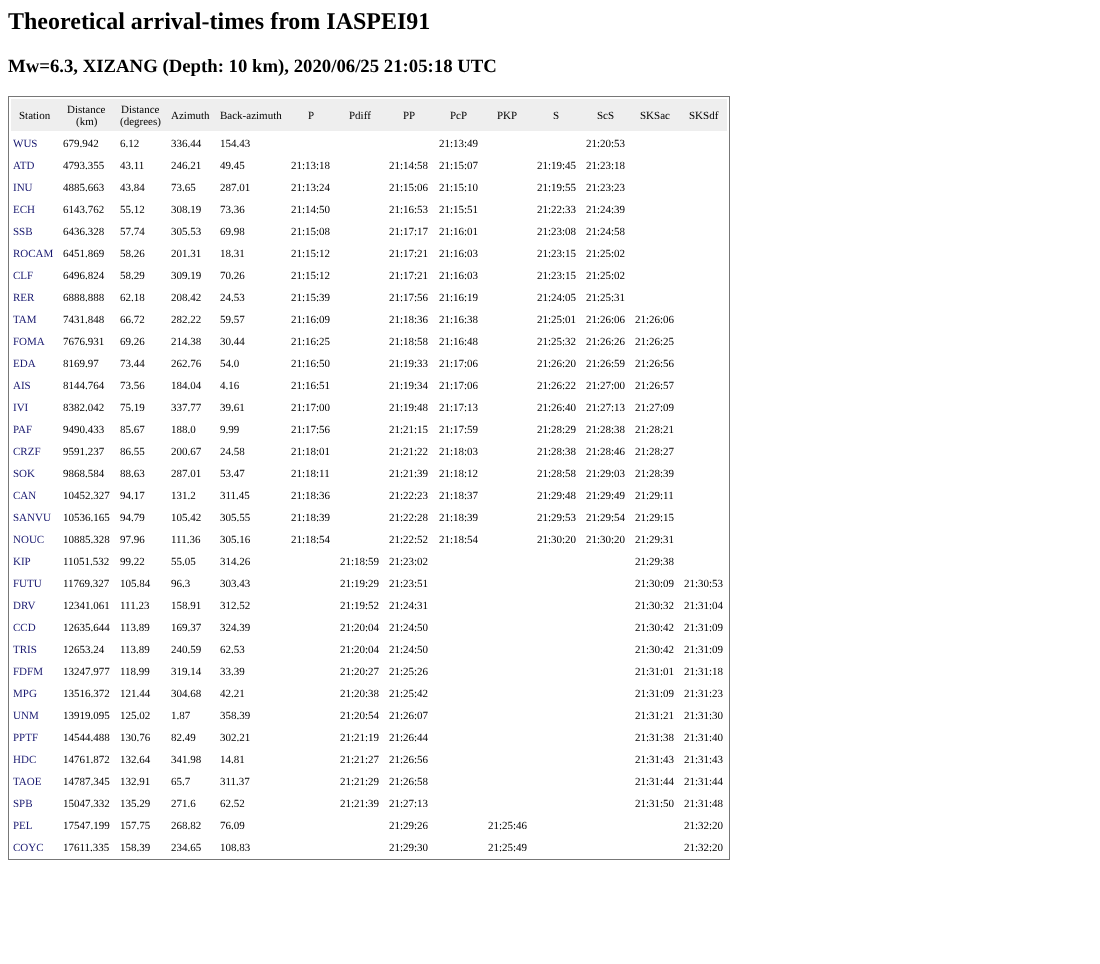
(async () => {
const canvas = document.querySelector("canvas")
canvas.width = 1100
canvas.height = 964
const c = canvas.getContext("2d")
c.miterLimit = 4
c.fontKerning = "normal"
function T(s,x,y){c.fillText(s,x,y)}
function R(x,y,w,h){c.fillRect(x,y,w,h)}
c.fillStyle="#fff"
R(0,0,1100,964)
c.font="bold 24px Liberation Serif"
c.fillStyle="#000"
T("Theoretical arrival-times from IASPEI91",8,29)
c.font="bold 18.75px Liberation Serif"
T("Mw=6.3, XIZANG (Depth: 10 km), 2020/06/25 21:05:18 UTC",8,72)
c.strokeStyle="#777"
c.strokeRect(8.5,96.5,721,763)
c.fillStyle="#eee"
R(11,99,716,32)
c.font="11px Liberation Serif"
c.fillStyle="#000"
T("Station",19,119)
T("Distance",67,113)
T("(km)",76,125)
T("Distance",121,113)
T("(degrees)",120,125)
T("Azimuth",171,119)
T("Back-azimuth",220,119)
T("P",308,119)
T("Pdiff",349,119)
T("PP",403,119)
T("PcP",450,119)
T("PKP",497,119)
T("S",553,119)
T("ScS",597,119)
T("SKSac",640,119)
T("SKSdf",689,119)
c.fillStyle="#191970"
T("WUS",13,147)
c.fillStyle="#000"
T("679.942",63,147)
T("6.12",120,147)
T("336.44",171,147)
T("154.43",220,147)
T("21:13:49",439,147)
T("21:20:53",586,147)
c.fillStyle="#191970"
T("ATD",13,169)
c.fillStyle="#000"
T("4793.355",63,169)
T("43.11",120,169)
T("246.21",171,169)
T("49.45",220,169)
T("21:13:18",291,169)
T("21:14:58",389,169)
T("21:15:07",439,169)
T("21:19:45",537,169)
T("21:23:18",586,169)
c.fillStyle="#191970"
T("INU",13,191)
c.fillStyle="#000"
T("4885.663",63,191)
T("43.84",120,191)
T("73.65",171,191)
T("287.01",220,191)
T("21:13:24",291,191)
T("21:15:06",389,191)
T("21:15:10",439,191)
T("21:19:55",537,191)
T("21:23:23",586,191)
c.fillStyle="#191970"
T("ECH",13,213)
c.fillStyle="#000"
T("6143.762",63,213)
T("55.12",120,213)
T("308.19",171,213)
T("73.36",220,213)
T("21:14:50",291,213)
T("21:16:53",389,213)
T("21:15:51",439,213)
T("21:22:33",537,213)
T("21:24:39",586,213)
c.fillStyle="#191970"
T("SSB",13,235)
c.fillStyle="#000"
T("6436.328",63,235)
T("57.74",120,235)
T("305.53",171,235)
T("69.98",220,235)
T("21:15:08",291,235)
T("21:17:17",389,235)
T("21:16:01",439,235)
T("21:23:08",537,235)
T("21:24:58",586,235)
c.fillStyle="#191970"
T("ROCAM",13,257)
c.fillStyle="#000"
T("6451.869",63,257)
T("58.26",120,257)
T("201.31",171,257)
T("18.31",220,257)
T("21:15:12",291,257)
T("21:17:21",389,257)
T("21:16:03",439,257)
T("21:23:15",537,257)
T("21:25:02",586,257)
c.fillStyle="#191970"
T("CLF",13,279)
c.fillStyle="#000"
T("6496.824",63,279)
T("58.29",120,279)
T("309.19",171,279)
T("70.26",220,279)
T("21:15:12",291,279)
T("21:17:21",389,279)
T("21:16:03",439,279)
T("21:23:15",537,279)
T("21:25:02",586,279)
c.fillStyle="#191970"
T("RER",13,301)
c.fillStyle="#000"
T("6888.888",63,301)
T("62.18",120,301)
T("208.42",171,301)
T("24.53",220,301)
T("21:15:39",291,301)
T("21:17:56",389,301)
T("21:16:19",439,301)
T("21:24:05",537,301)
T("21:25:31",586,301)
c.fillStyle="#191970"
T("TAM",13,323)
c.fillStyle="#000"
T("7431.848",63,323)
T("66.72",120,323)
T("282.22",171,323)
T("59.57",220,323)
T("21:16:09",291,323)
T("21:18:36",389,323)
T("21:16:38",439,323)
T("21:25:01",537,323)
T("21:26:06",586,323)
T("21:26:06",635,323)
c.fillStyle="#191970"
T("FOMA",13,345)
c.fillStyle="#000"
T("7676.931",63,345)
T("69.26",120,345)
T("214.38",171,345)
T("30.44",220,345)
T("21:16:25",291,345)
T("21:18:58",389,345)
T("21:16:48",439,345)
T("21:25:32",537,345)
T("21:26:26",586,345)
T("21:26:25",635,345)
c.fillStyle="#191970"
T("EDA",13,367)
c.fillStyle="#000"
T("8169.97",63,367)
T("73.44",120,367)
T("262.76",171,367)
T("54.0",220,367)
T("21:16:50",291,367)
T("21:19:33",389,367)
T("21:17:06",439,367)
T("21:26:20",537,367)
T("21:26:59",586,367)
T("21:26:56",635,367)
c.fillStyle="#191970"
T("AIS",13,389)
c.fillStyle="#000"
T("8144.764",63,389)
T("73.56",120,389)
T("184.04",171,389)
T("4.16",220,389)
T("21:16:51",291,389)
T("21:19:34",389,389)
T("21:17:06",439,389)
T("21:26:22",537,389)
T("21:27:00",586,389)
T("21:26:57",635,389)
c.fillStyle="#191970"
T("IVI",13,411)
c.fillStyle="#000"
T("8382.042",63,411)
T("75.19",120,411)
T("337.77",171,411)
T("39.61",220,411)
T("21:17:00",291,411)
T("21:19:48",389,411)
T("21:17:13",439,411)
T("21:26:40",537,411)
T("21:27:13",586,411)
T("21:27:09",635,411)
c.fillStyle="#191970"
T("PAF",13,433)
c.fillStyle="#000"
T("9490.433",63,433)
T("85.67",120,433)
T("188.0",171,433)
T("9.99",220,433)
T("21:17:56",291,433)
T("21:21:15",389,433)
T("21:17:59",439,433)
T("21:28:29",537,433)
T("21:28:38",586,433)
T("21:28:21",635,433)
c.fillStyle="#191970"
T("CRZF",13,455)
c.fillStyle="#000"
T("9591.237",63,455)
T("86.55",120,455)
T("200.67",171,455)
T("24.58",220,455)
T("21:18:01",291,455)
T("21:21:22",389,455)
T("21:18:03",439,455)
T("21:28:38",537,455)
T("21:28:46",586,455)
T("21:28:27",635,455)
c.fillStyle="#191970"
T("SOK",13,477)
c.fillStyle="#000"
T("9868.584",63,477)
T("88.63",120,477)
T("287.01",171,477)
T("53.47",220,477)
T("21:18:11",291,477)
T("21:21:39",389,477)
T("21:18:12",439,477)
T("21:28:58",537,477)
T("21:29:03",586,477)
T("21:28:39",635,477)
c.fillStyle="#191970"
T("CAN",13,499)
c.fillStyle="#000"
T("10452.327",63,499)
T("94.17",120,499)
T("131.2",171,499)
T("311.45",220,499)
T("21:18:36",291,499)
T("21:22:23",389,499)
T("21:18:37",439,499)
T("21:29:48",537,499)
T("21:29:49",586,499)
T("21:29:11",635,499)
c.fillStyle="#191970"
T("SANVU",13,521)
c.fillStyle="#000"
T("10536.165",63,521)
T("94.79",120,521)
T("105.42",171,521)
T("305.55",220,521)
T("21:18:39",291,521)
T("21:22:28",389,521)
T("21:18:39",439,521)
T("21:29:53",537,521)
T("21:29:54",586,521)
T("21:29:15",635,521)
c.fillStyle="#191970"
T("NOUC",13,543)
c.fillStyle="#000"
T("10885.328",63,543)
T("97.96",120,543)
T("111.36",171,543)
T("305.16",220,543)
T("21:18:54",291,543)
T("21:22:52",389,543)
T("21:18:54",439,543)
T("21:30:20",537,543)
T("21:30:20",586,543)
T("21:29:31",635,543)
c.fillStyle="#191970"
T("KIP",13,565)
c.fillStyle="#000"
T("11051.532",63,565)
T("99.22",120,565)
T("55.05",171,565)
T("314.26",220,565)
T("21:18:59",340,565)
T("21:23:02",389,565)
T("21:29:38",635,565)
c.fillStyle="#191970"
T("FUTU",13,587)
c.fillStyle="#000"
T("11769.327",63,587)
T("105.84",120,587)
T("96.3",171,587)
T("303.43",220,587)
T("21:19:29",340,587)
T("21:23:51",389,587)
T("21:30:09",635,587)
T("21:30:53",684,587)
c.fillStyle="#191970"
T("DRV",13,609)
c.fillStyle="#000"
T("12341.061",63,609)
T("111.23",120,609)
T("158.91",171,609)
T("312.52",220,609)
T("21:19:52",340,609)
T("21:24:31",389,609)
T("21:30:32",635,609)
T("21:31:04",684,609)
c.fillStyle="#191970"
T("CCD",13,631)
c.fillStyle="#000"
T("12635.644",63,631)
T("113.89",120,631)
T("169.37",171,631)
T("324.39",220,631)
T("21:20:04",340,631)
T("21:24:50",389,631)
T("21:30:42",635,631)
T("21:31:09",684,631)
c.fillStyle="#191970"
T("TRIS",13,653)
c.fillStyle="#000"
T("12653.24",63,653)
T("113.89",120,653)
T("240.59",171,653)
T("62.53",220,653)
T("21:20:04",340,653)
T("21:24:50",389,653)
T("21:30:42",635,653)
T("21:31:09",684,653)
c.fillStyle="#191970"
T("FDFM",13,675)
c.fillStyle="#000"
T("13247.977",63,675)
T("118.99",120,675)
T("319.14",171,675)
T("33.39",220,675)
T("21:20:27",340,675)
T("21:25:26",389,675)
T("21:31:01",635,675)
T("21:31:18",684,675)
c.fillStyle="#191970"
T("MPG",13,697)
c.fillStyle="#000"
T("13516.372",63,697)
T("121.44",120,697)
T("304.68",171,697)
T("42.21",220,697)
T("21:20:38",340,697)
T("21:25:42",389,697)
T("21:31:09",635,697)
T("21:31:23",684,697)
c.fillStyle="#191970"
T("UNM",13,719)
c.fillStyle="#000"
T("13919.095",63,719)
T("125.02",120,719)
T("1.87",171,719)
T("358.39",220,719)
T("21:20:54",340,719)
T("21:26:07",389,719)
T("21:31:21",635,719)
T("21:31:30",684,719)
c.fillStyle="#191970"
T("PPTF",13,741)
c.fillStyle="#000"
T("14544.488",63,741)
T("130.76",120,741)
T("82.49",171,741)
T("302.21",220,741)
T("21:21:19",340,741)
T("21:26:44",389,741)
T("21:31:38",635,741)
T("21:31:40",684,741)
c.fillStyle="#191970"
T("HDC",13,763)
c.fillStyle="#000"
T("14761.872",63,763)
T("132.64",120,763)
T("341.98",171,763)
T("14.81",220,763)
T("21:21:27",340,763)
T("21:26:56",389,763)
T("21:31:43",635,763)
T("21:31:43",684,763)
c.fillStyle="#191970"
T("TAOE",13,785)
c.fillStyle="#000"
T("14787.345",63,785)
T("132.91",120,785)
T("65.7",171,785)
T("311.37",220,785)
T("21:21:29",340,785)
T("21:26:58",389,785)
T("21:31:44",635,785)
T("21:31:44",684,785)
c.fillStyle="#191970"
T("SPB",13,807)
c.fillStyle="#000"
T("15047.332",63,807)
T("135.29",120,807)
T("271.6",171,807)
T("62.52",220,807)
T("21:21:39",340,807)
T("21:27:13",389,807)
T("21:31:50",635,807)
T("21:31:48",684,807)
c.fillStyle="#191970"
T("PEL",13,829)
c.fillStyle="#000"
T("17547.199",63,829)
T("157.75",120,829)
T("268.82",171,829)
T("76.09",220,829)
T("21:29:26",389,829)
T("21:25:46",488,829)
T("21:32:20",684,829)
c.fillStyle="#191970"
T("COYC",13,851)
c.fillStyle="#000"
T("17611.335",63,851)
T("158.39",120,851)
T("234.65",171,851)
T("108.83",220,851)
T("21:29:30",389,851)
T("21:25:49",488,851)
T("21:32:20",684,851)
})()
